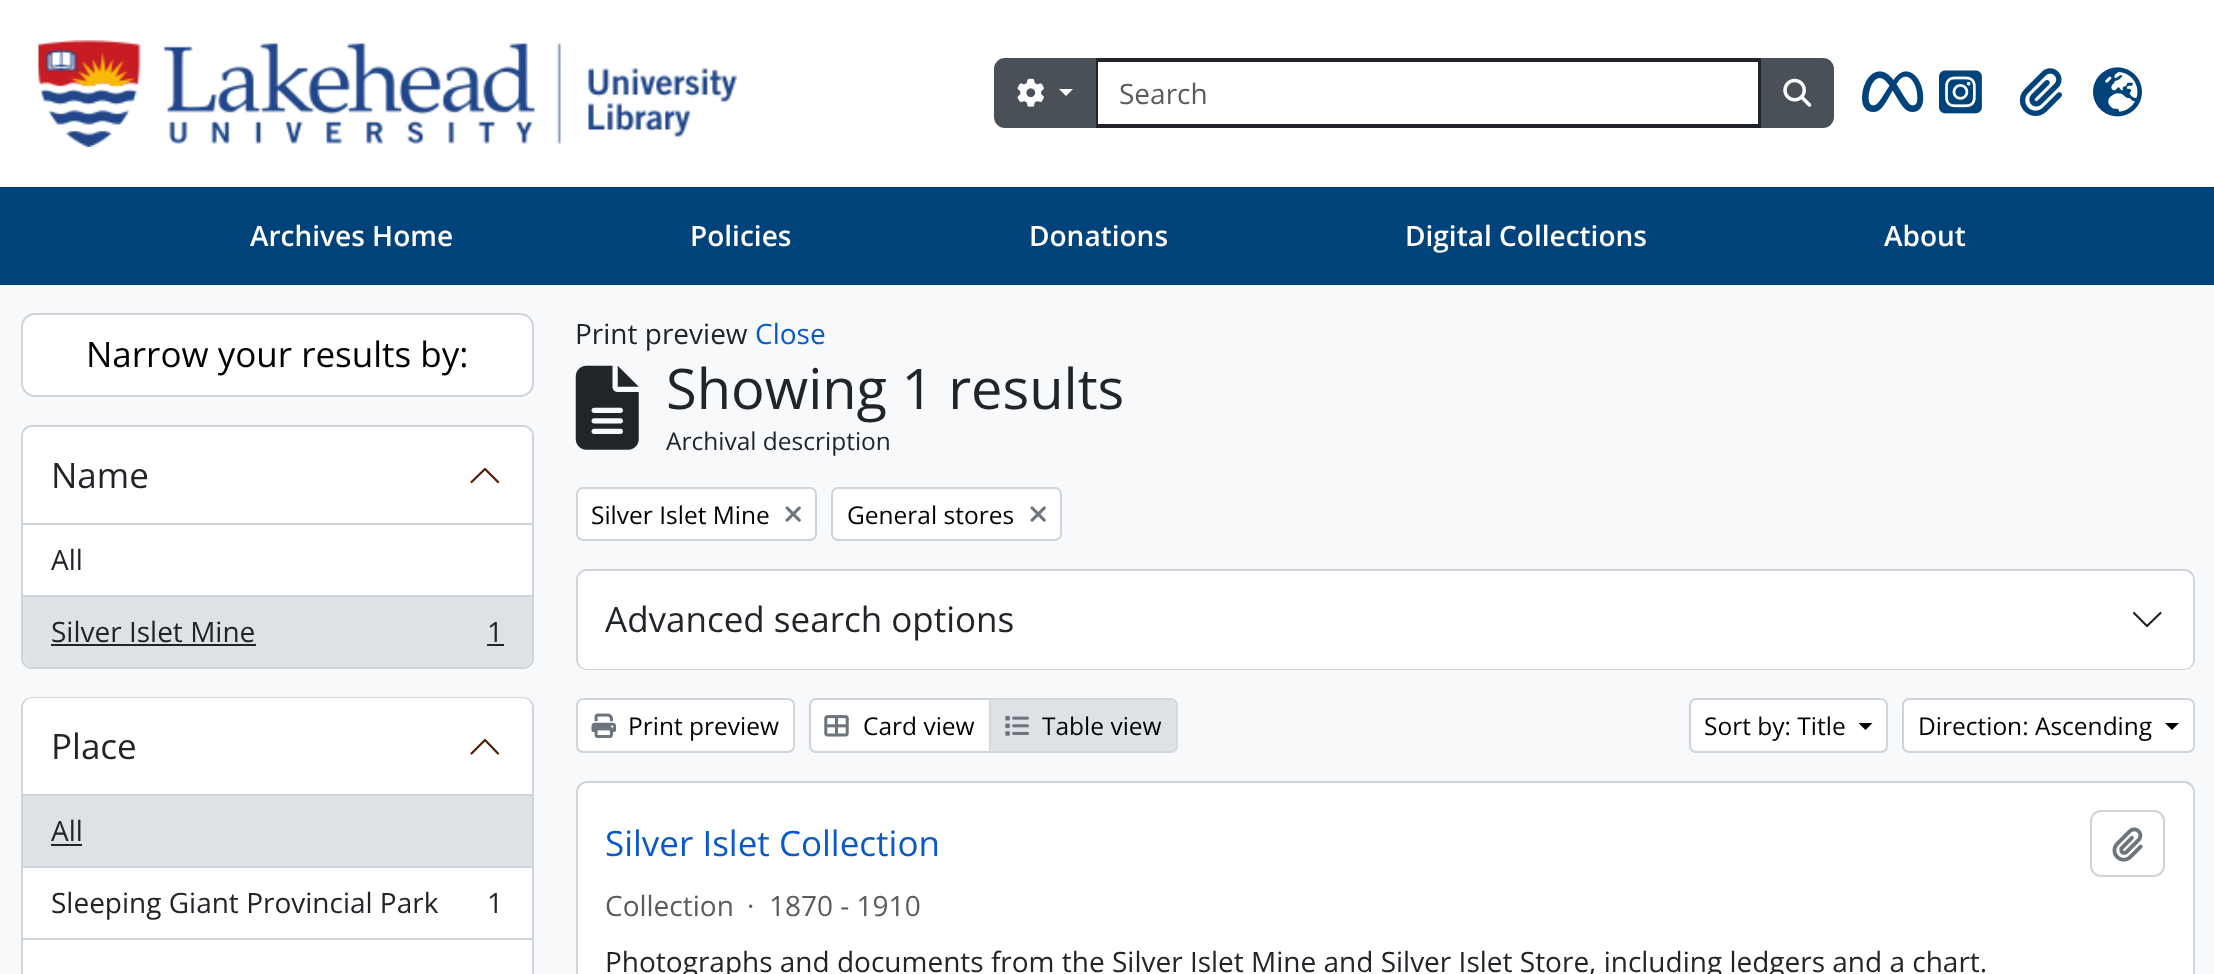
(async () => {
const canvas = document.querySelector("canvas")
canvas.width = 2214
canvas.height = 974
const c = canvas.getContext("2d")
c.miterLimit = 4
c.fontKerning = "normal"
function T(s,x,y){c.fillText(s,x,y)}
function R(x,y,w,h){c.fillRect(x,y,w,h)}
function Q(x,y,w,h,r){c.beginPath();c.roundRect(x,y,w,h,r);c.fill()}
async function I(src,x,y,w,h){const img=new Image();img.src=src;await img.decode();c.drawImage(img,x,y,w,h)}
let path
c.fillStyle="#f8f9fa"
R(0,0,2214,974)
c.fillStyle="#fff"
R(0,0,2214,187)
await I("1.png",38,40,699,107)
c.strokeStyle="#212529"
c.lineWidth=4
c.strokeRect(1096,60,664,66)
c.fillStyle="#495057"
c.beginPath()
c.roundRect(995,59,100,68,[10,0,0,10])
c.fill()
c.strokeStyle="#495057"
c.lineWidth=2
c.stroke()
await I("2.png",1017,78,27,29)
c.fillStyle="#fff"
path = new Path2D("M1059 89h14l-7 7z")
c.fill(path)
c.font="28px Open Sans"
c.fillStyle="#595c5f"
T("Search",1119,104)
c.fillStyle="#495057"
c.beginPath()
c.roundRect(1762,59,71,68,[0,10,10,0])
c.fill()
c.stroke()
await I("3.png",1783,78,29,29)
await I("4.png",1862,71,62,41)
await I("5.png",1939,70,43,44)
await I("6.png",2019,68,43,48)
await I("7.png",2093,67,49,50)
c.fillStyle="#00427a"
R(0,187,2214,98)
c.font="600 28px Open Sans"
c.fillStyle="#fff"
T("Archives Home",250,246)
T("Policies",690,246)
T("Donations",1029,246)
T("Digital Collections",1405,246)
T("About",1884,246)
c.beginPath()
c.roundRect(22,314,511,82,13)
c.fill()
c.strokeStyle="#ced4da"
c.stroke()
c.font="35px Open Sans"
c.fillStyle="#000"
T("Narrow your results by:",86,367)
c.fillStyle="#fff"
c.beginPath()
c.roundRect(22,426,511,242,10)
c.fill()
c.stroke()
c.beginPath()
c.roundRect(23,427,509,98,[9,9,0,0])
c.fill()
c.fillStyle="#ced4da"
R(23,523,509,2)
c.fillStyle="#212529"
T("Name",51,488)
path = new Path2D("M498 482l-13-13l-13.5 13")
c.strokeStyle="#4e1f00"
c.lineWidth=2.2
c.lineCap="round"
c.lineJoin="round"
c.stroke(path)
c.fillStyle="#ced4da"
R(23,595,509,2)
c.font="28px Open Sans"
c.fillStyle="#212529"
T("All",51,570)
c.fillStyle="#dee2e6"
c.beginPath()
c.roundRect(23,597,509,70,[0,0,11,11])
c.fill()
c.fillStyle="#212529"
T("Silver Islet Mine",51,642)
R(51,644,205,2)
T("1",487,642)
R(487,644,17,2)
c.fillStyle="#fff"
c.beginPath()
c.roundRect(22,698,511,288,10)
c.fill()
c.strokeStyle="#ced4da"
c.lineWidth=2
c.lineJoin="miter"
c.stroke()
c.beginPath()
c.roundRect(23,698,509,98,[9,9,0,0])
c.fill()
c.fillStyle="#ced4da"
R(23,794,509,2)
c.font="35px Open Sans"
c.fillStyle="#212529"
T("Place",51,759)
path = new Path2D("M498 753.5l-13-13.5l-13.5 13.5")
c.strokeStyle="#4e1f00"
c.lineWidth=2.2
c.lineJoin="round"
c.stroke(path)
c.fillStyle="#dee2e6"
R(23,796,509,70)
c.fillStyle="#ced4da"
R(23,866,509,2)
c.font="28px Open Sans"
c.fillStyle="#212529"
T("All",51,841)
R(51,844,31,2)
c.fillStyle="#ced4da"
R(23,938,509,2)
c.fillStyle="#212529"
T("Sleeping Giant Provincial Park",51,913)
T("1",487,913)
T("Print preview",575,344)
c.fillStyle="#0a58ca"
T("Close",755,344)
await I("8.png",575,365,64,85)
c.font="56px Open Sans"
c.fillStyle="#212529"
T("Showing 1 results",666,409)
c.font="24.5px Open Sans"
T("Archival description",666,450)
c.fillStyle="#fff"
c.beginPath()
c.roundRect(577,488,239,52,6)
c.fill()
c.strokeStyle="#ced4da"
c.lineWidth=2
c.lineJoin="miter"
c.stroke()
c.fillStyle="#000"
T("Silver Islet Mine",591,524)
await I("9.png",785,506,16,16)
c.fillStyle="#fff"
c.beginPath()
c.roundRect(832,488,229,52,6)
c.fill()
c.stroke()
c.fillStyle="#000"
T("General stores",847,524)
await I("9.png",1030,506,16,16)
c.beginPath()
c.roundRect(577,570,1617,99,10)
c.stroke()
c.fillStyle="#fff"
Q(578,571,1615,98,9)
c.font="35px Open Sans"
c.fillStyle="#212529"
T("Advanced search options",605,632)
path = new Path2D("M2134 613l13 13l13.5-13")
c.strokeStyle="#212529"
c.lineWidth=2.2
c.lineJoin="round"
c.stroke(path)
c.fillStyle="#fff"
c.beginPath()
c.roundRect(577,699,217,53,6)
c.fill()
c.strokeStyle="#ced4da"
c.lineWidth=2
c.lineJoin="miter"
c.stroke()
await I("10.png",591,713,25,26)
c.font="24.5px Open Sans"
c.fillStyle="#000"
T("Print preview",628,735)
c.fillStyle="#fff"
c.beginPath()
c.roundRect(810,699,180,53,[6,0,0,6])
c.fill()
c.stroke()
await I("11.png",824,715,25,22)
c.fillStyle="#000"
T("Card view",863,735)
c.fillStyle="#dee2e6"
c.beginPath()
c.roundRect(990,699,187,53,[0,6,6,0])
c.fill()
c.strokeStyle="#d3d8de"
c.stroke()
await I("12.png",1005,715,24,21)
c.fillStyle="#000"
T("Table view",1042,735)
c.fillStyle="#fff"
c.beginPath()
c.roundRect(1690,699,197,53,6)
c.fill()
c.strokeStyle="#ced4da"
c.stroke()
c.fillStyle="#000"
T("Sort by: Title",1704,735)
path = new Path2D("M1858.5 723h14l-7 7z")
c.fill(path)
c.fillStyle="#fff"
c.beginPath()
c.roundRect(1903,699,291,53,6)
c.fill()
c.stroke()
c.fillStyle="#000"
T("Direction: Ascending",1918,735)
path = new Path2D("M2165 723h14l-7 7z")
c.fill(path)
c.fillStyle="#fff"
c.beginPath()
c.roundRect(577,782,1617,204,10)
c.fill()
c.stroke()
c.font="35px Open Sans"
c.fillStyle="#0a58ca"
T("Silver Islet Collection",605,856)
c.beginPath()
c.roundRect(2091,811,73,65,10)
c.stroke()
await I("13.png",2112,827,31,35)
c.font="28px Open Sans"
c.fillStyle="#595c5f"
T("Collection",605,916)
T("·",747,916)
T("1870 - 1910",769,916)
c.fillStyle="#212529"
T("Photographs and documents from the Silver Islet Mine and Silver Islet Store, including ledgers and a chart.",605,972)
})()
